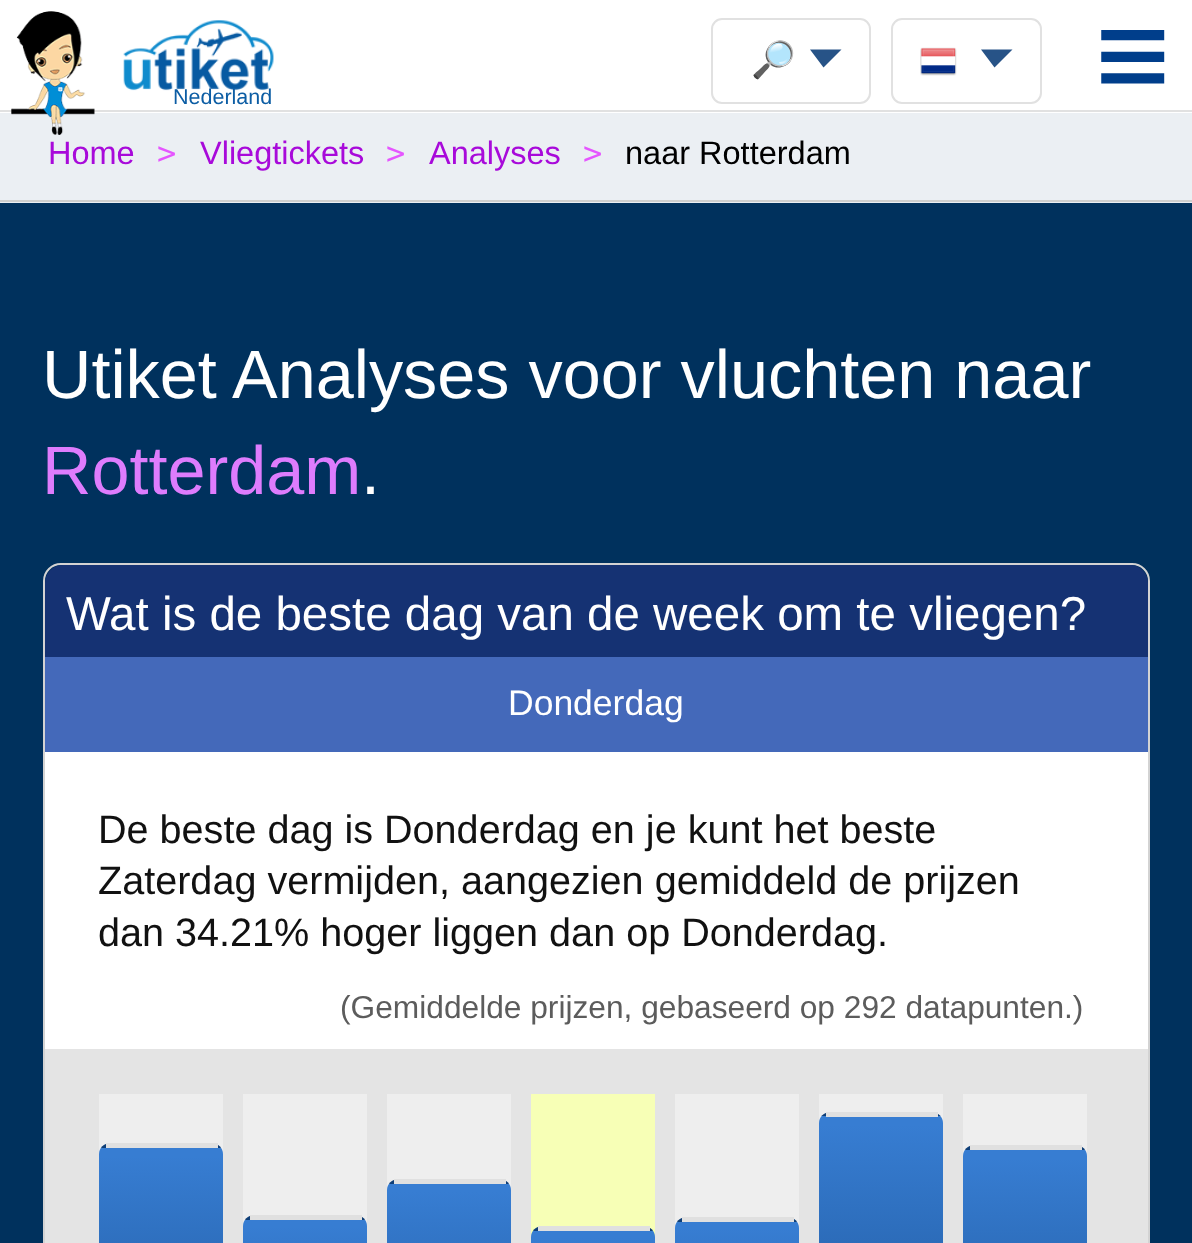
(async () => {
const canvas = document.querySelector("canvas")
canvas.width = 1192
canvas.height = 1243
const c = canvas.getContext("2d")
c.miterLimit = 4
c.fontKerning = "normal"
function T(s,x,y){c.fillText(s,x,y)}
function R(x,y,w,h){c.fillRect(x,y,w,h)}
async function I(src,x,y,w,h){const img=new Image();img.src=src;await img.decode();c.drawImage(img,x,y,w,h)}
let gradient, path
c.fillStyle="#ebeff3"
R(0,0,1192,1243)
c.fillStyle="#fff"
R(0,0,1192,113)
c.fillStyle="#e1e1e1"
R(0,110,1192,2)
c.font="122px DejaVu Sans Mono"
c.fillStyle="#003e8b"
T("≡",1096,95)
await I("1.png",11,11,84,124)
await I("2.png",123,20,151,71)
c.font="21.5px Liberation Sans"
c.fillStyle="#0c5da4"
T("Nederland",173,104)
c.beginPath()
c.roundRect(712,19,158,84,10)
c.strokeStyle="#e1e1e1"
c.lineWidth=2
c.stroke()
c.font="36px Noto Color Emoji"
c.fillStyle="#003e8b"
T("🔎",751,72)
c.fillStyle="#275387"
path = new Path2D("M810 49.5h31.5l-18 18z")
c.fill(path)
c.beginPath()
c.roundRect(892,19,149,84,10)
c.stroke()
await I("3.png",920,47,37,29)
path = new Path2D("M981 49.5h31.5l-18 18z")
c.fill(path)
c.fillStyle="#cfcfcf"
R(0,200,1192,2)
c.font="32.5px Liberation Sans"
c.fillStyle="#a80ada"
T("Home",48,164)
c.font="32px DejaVu Sans Mono"
c.fillStyle="#e555ff"
T(">",157,164)
c.font="32.5px Liberation Sans"
c.fillStyle="#a80ada"
T("Vliegtickets",200,164)
c.font="32px DejaVu Sans Mono"
c.fillStyle="#e555ff"
T(">",386,164)
c.font="32.5px Liberation Sans"
c.fillStyle="#a80ada"
T("Analyses",429,164)
c.font="32px DejaVu Sans Mono"
c.fillStyle="#e555ff"
T(">",583,164)
c.font="32.5px Liberation Sans"
c.fillStyle="#000"
T("naar Rotterdam",625,164)
c.fillStyle="#00315d"
R(0,203,1192,1040)
c.font="68.4px Liberation Sans"
c.fillStyle="#fff"
T("Utiket Analyses voor vluchten naar",42,398)
c.fillStyle="#de7cfd"
T("Rotterdam",42,494)
c.fillStyle="#fff"
T(".",361,494)
path = new Path2D("M61 564h1071c9.5 0 17 7.5 17 17v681h-1105v-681c0-9.5 7.5-17 17-17z")
c.strokeStyle="#d3d3d3"
c.stroke(path)
c.fillStyle="#153273"
c.beginPath()
c.roundRect(45,565,1103,92,[18,18,0,0])
c.fill()
c.font="47.5px Liberation Sans"
c.fillStyle="#fff"
T("Wat is de beste dag van de week om te vliegen?",66,630)
c.fillStyle="#4469ba"
R(45,657,1103,95)
c.font="35.5px Liberation Sans"
c.fillStyle="#fff"
T("Donderdag",508,715)
R(45,752,1103,297)
c.font="39.6px Liberation Sans"
c.fillStyle="#111"
T("De beste dag is Donderdag en je kunt het beste",98,843)
T("Zaterdag vermijden, aangezien gemiddeld de prijzen",98,894)
T("dan 34.21% hoger liggen dan op Donderdag.",98,946)
c.font="31.7px Liberation Sans"
c.fillStyle="#5c5c5c"
T("(Gemiddelde prijzen, gebaseerd op 292 datapunten.)",340,1018)
c.fillStyle="#e4e4e4"
R(45,1049,1103,194)
c.fillStyle="#eee"
R(99,1094,124,60)
c.save()
path = new Path2D("M110 1143h102c6 0 11 5 11 11v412h-124v-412c0-6 5-11 11-11z")
c.clip(path)
gradient = c.createLinearGradient(161,729,161,1148)
gradient.addColorStop(.02,"#377dd2")
gradient.addColorStop(1,"#0e3e77")
c.fillStyle = gradient
R(99,1143,124,5)
gradient = c.createLinearGradient(161,1148,161,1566)
gradient.addColorStop(.02,"#377dd2")
gradient.addColorStop(1,"#0e3e77")
c.fillStyle = gradient
R(99,1148,124,95)
c.restore()
c.fillStyle="#e0e0e0"
R(106,1143,112,5)
c.fillStyle="#eee"
R(243,1094,124,132)
c.save()
path = new Path2D("M254 1215h102c6 0 11 5 11 11v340h-124v-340c0-6 5-11 11-11z")
c.clip(path)
gradient = c.createLinearGradient(305,873,305,1220)
gradient.addColorStop(.02,"#377dd2")
gradient.addColorStop(1,"#0e3e77")
c.fillStyle = gradient
R(243,1215,124,5)
gradient = c.createLinearGradient(305,1220,305,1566)
gradient.addColorStop(.02,"#377dd2")
gradient.addColorStop(1,"#0e3e77")
c.fillStyle = gradient
R(243,1220,124,23)
c.restore()
c.fillStyle="#e0e0e0"
R(250,1215,112,5)
c.fillStyle="#eee"
R(387,1094,124,96)
c.save()
path = new Path2D("M398 1179h102c6 0 11 5 11 11v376h-124v-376c0-6 5-11 11-11z")
c.clip(path)
gradient = c.createLinearGradient(449,801,449,1184)
gradient.addColorStop(.02,"#377dd2")
gradient.addColorStop(1,"#0e3e77")
c.fillStyle = gradient
R(387,1179,124,5)
gradient = c.createLinearGradient(449,1184,449,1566)
gradient.addColorStop(.02,"#377dd2")
gradient.addColorStop(1,"#0e3e77")
c.fillStyle = gradient
R(387,1184,124,59)
c.restore()
c.fillStyle="#e0e0e0"
R(394,1179,112,5)
c.fillStyle="#f7ffb6"
R(531,1094,124,143)
c.save()
path = new Path2D("M542 1226h102c6 0 11 5 11 11v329h-124v-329c0-6 5-11 11-11z")
c.clip(path)
gradient = c.createLinearGradient(593,896,593,1231)
gradient.addColorStop(.02,"#377dd2")
gradient.addColorStop(1,"#0e3e77")
c.fillStyle = gradient
R(531,1226,124,5)
gradient = c.createLinearGradient(593,1231,593,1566)
gradient.addColorStop(.02,"#377dd2")
gradient.addColorStop(1,"#0e3e77")
c.fillStyle = gradient
R(531,1231,124,12)
c.restore()
c.fillStyle="#e0e0e0"
R(538,1226,112,5)
c.fillStyle="#eee"
R(675,1094,124,134)
c.save()
path = new Path2D("M686 1217h102c6 0 11 5 11 11v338h-124v-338c0-6 5-11 11-11z")
c.clip(path)
gradient = c.createLinearGradient(737,878,737,1222)
gradient.addColorStop(.02,"#377dd2")
gradient.addColorStop(1,"#0e3e77")
c.fillStyle = gradient
R(675,1217,124,5)
gradient = c.createLinearGradient(737,1222,737,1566)
gradient.addColorStop(.02,"#377dd2")
gradient.addColorStop(1,"#0e3e77")
c.fillStyle = gradient
R(675,1222,124,21)
c.restore()
c.fillStyle="#e0e0e0"
R(682,1217,112,5)
c.fillStyle="#eee"
R(819,1094,124,29)
c.save()
path = new Path2D("M830 1112h102c6 0 11 5 11 11v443h-124v-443c0-6 5-11 11-11z")
c.clip(path)
gradient = c.createLinearGradient(881,666,881,1116)
gradient.addColorStop(.02,"#377dd2")
gradient.addColorStop(1,"#0e3e77")
c.fillStyle = gradient
R(819,1112,124,4)
gradient = c.createLinearGradient(881,1116,881,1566)
gradient.addColorStop(.02,"#377dd2")
gradient.addColorStop(1,"#0e3e77")
c.fillStyle = gradient
R(819,1116,124,127)
c.restore()
c.fillStyle="#e0e0e0"
R(826,1112,112,5)
c.fillStyle="#eee"
R(963,1094,124,62)
c.save()
path = new Path2D("M974 1145h102c6 0 11 5 11 11v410h-124v-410c0-6 5-11 11-11z")
c.clip(path)
gradient = c.createLinearGradient(1025,734,1025,1150)
gradient.addColorStop(.02,"#377dd2")
gradient.addColorStop(1,"#0e3e77")
c.fillStyle = gradient
R(963,1145,124,5)
gradient = c.createLinearGradient(1025,1150,1025,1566)
gradient.addColorStop(.02,"#377dd2")
gradient.addColorStop(1,"#0e3e77")
c.fillStyle = gradient
R(963,1150,124,93)
c.restore()
c.fillStyle="#e0e0e0"
R(970,1145,112,5)
})()
